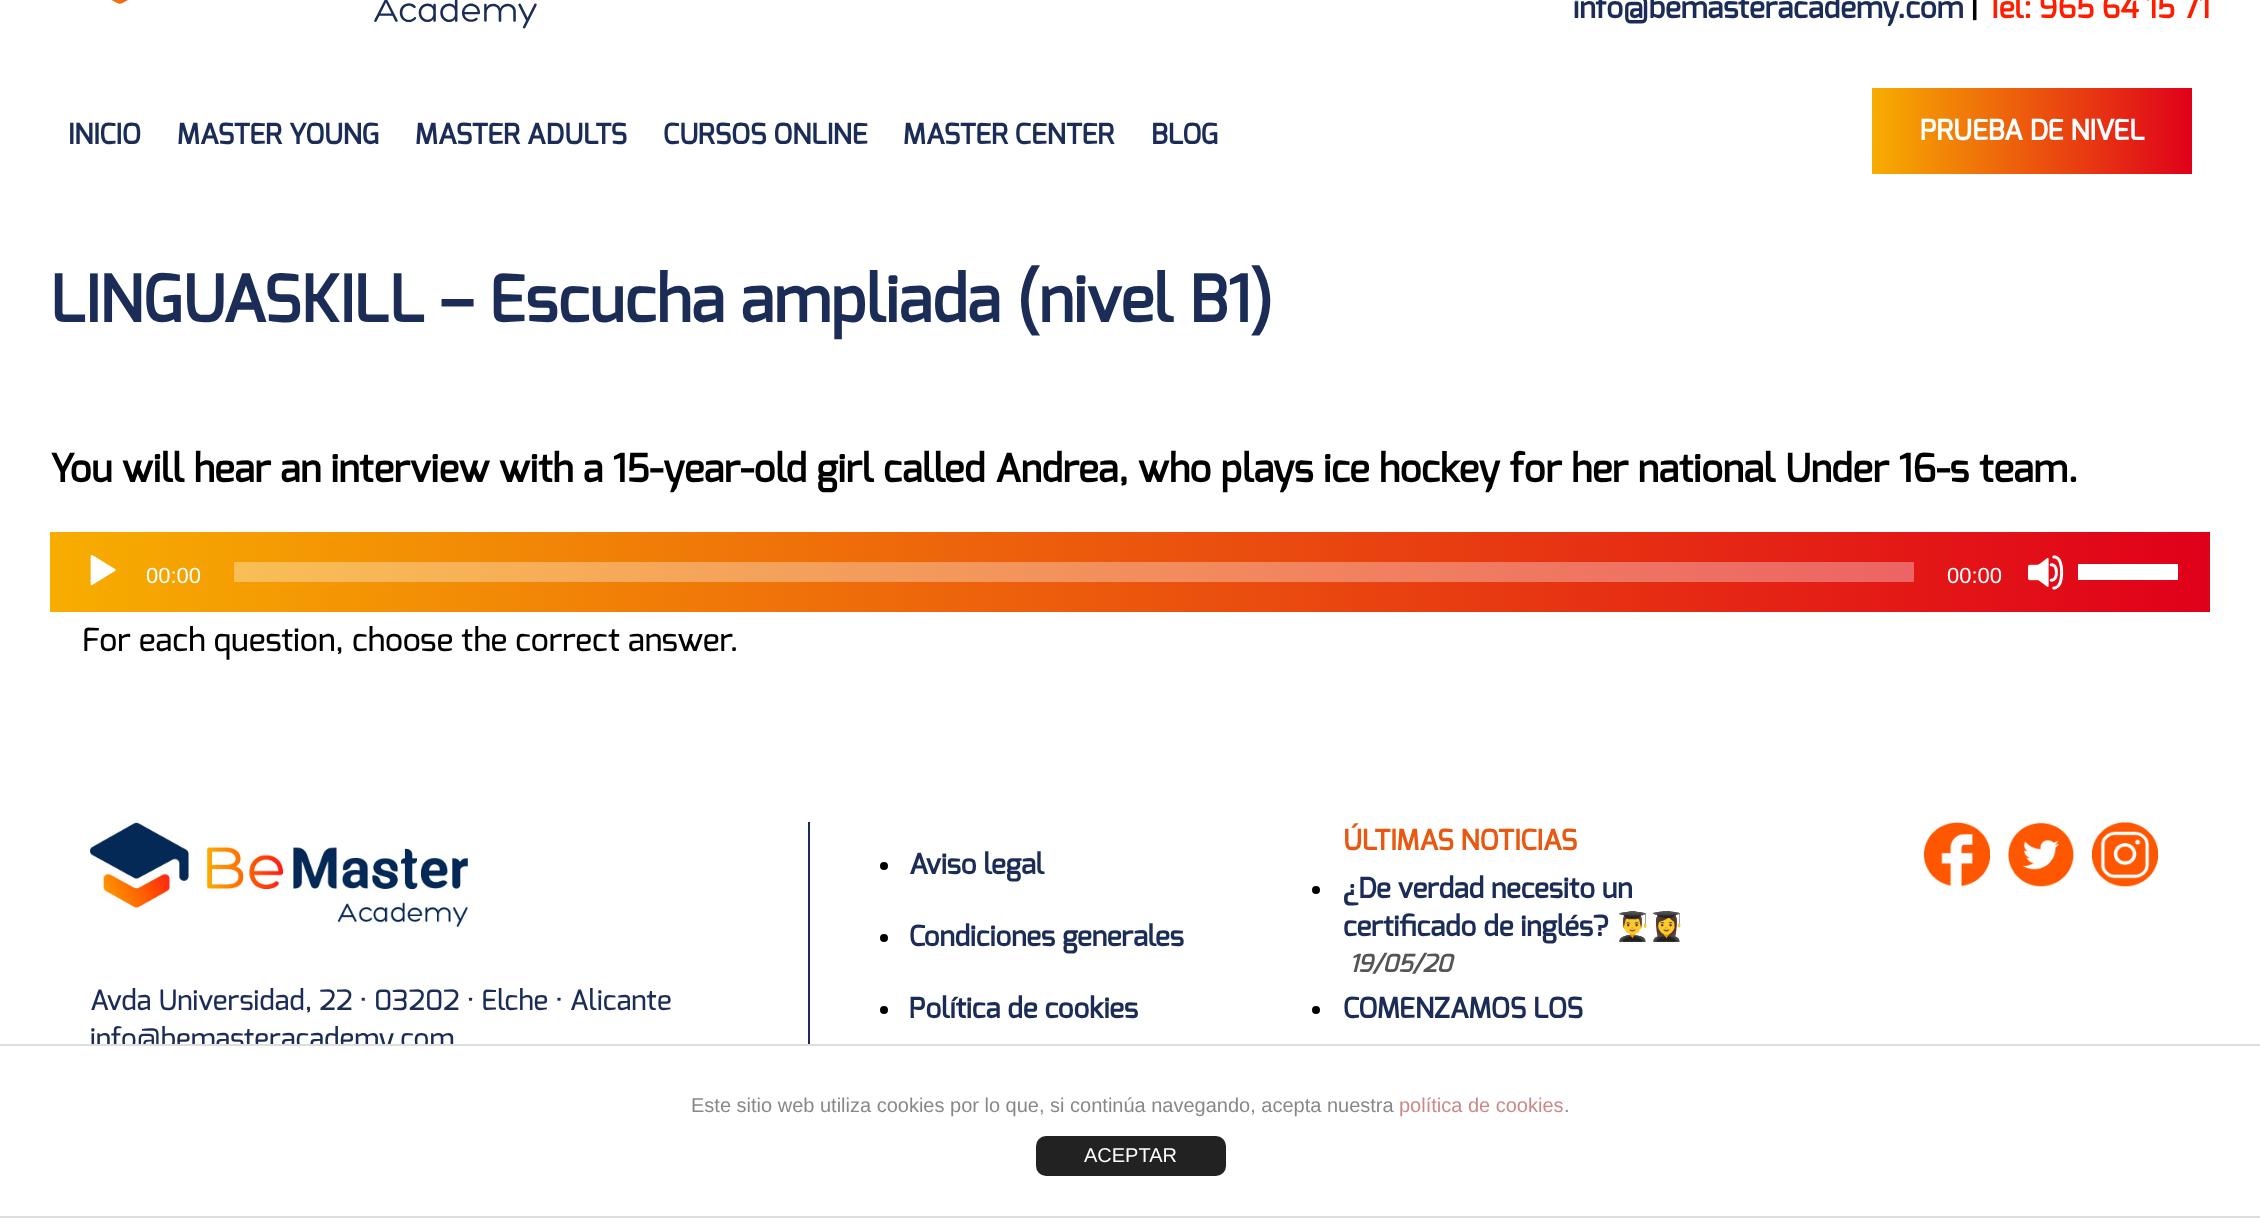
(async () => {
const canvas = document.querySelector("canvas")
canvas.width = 2260
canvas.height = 1218
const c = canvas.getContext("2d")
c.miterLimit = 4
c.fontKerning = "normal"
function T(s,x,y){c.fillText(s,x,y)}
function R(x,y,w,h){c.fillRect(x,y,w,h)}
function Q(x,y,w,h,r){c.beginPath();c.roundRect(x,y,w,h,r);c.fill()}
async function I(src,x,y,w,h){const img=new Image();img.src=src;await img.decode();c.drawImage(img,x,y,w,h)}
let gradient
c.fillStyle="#fff"
R(0,0,2260,1218)
await I("1.png",111,0,426,29)
c.font="bold 30px Exo"
c.fillStyle="#1b2c57"
T("info@bemasteracademy.com",1573,18)
c.font="bold 30px 'Exo 2'"
c.fillStyle="#000"
T("|",1971,18)
c.font="bold 30px Exo"
c.fillStyle="#ff1d00"
T("Tel: 965 64 15 71",1986,18)
c.font="bold 28px Exo"
c.fillStyle="#1b2c57"
T("INICIO",68,144)
T("MASTER YOUNG",177,144)
T("MASTER ADULTS",415,144)
T("CURSOS ONLINE",663,144)
T("MASTER CENTER",903,144)
T("BLOG",1151,144)
gradient = c.createLinearGradient(1872,131,2192,131)
gradient.addColorStop(0,"#f7ad00")
gradient.addColorStop(1,"#e0001a")
c.fillStyle = gradient
R(1872,88,320,86)
c.fillStyle="#fff"
T("PRUEBA DE NIVEL",1920,140)
c.font="bold 64px Exo"
c.fillStyle="#1b2c57"
T("LINGUASKILL – Escucha ampliada (nivel B1)",50,322)
c.font="bold 38.4px Exo"
c.fillStyle="#000"
T("You will hear an interview with a 15-year-old girl called Andrea, who plays ice hockey for her national Under 16-s team.",50,482)
gradient = c.createLinearGradient(50,572,2210,572)
gradient.addColorStop(0,"#f7ad00")
gradient.addColorStop(1,"#e0001a")
c.fillStyle = gradient
R(50,532,2160,80)
gradient = c.createLinearGradient(50,572,2210,572)
gradient.addColorStop(0,"#fac854")
gradient.addColorStop(1,"#ea5466")
c.fillStyle = gradient
R(234,562,1680,20)
await I("2.png",90,555,26,31)
c.font="22px Liberation Sans"
c.fillStyle="#fff"
T("00:00",146,583)
T("00:00",1947,583)
await I("3.png",2028,555,36,35)
R(2078,564,100,16)
c.font="500 32px Exo"
c.fillStyle="#000"
T("For each question, choose the correct answer.",82,651)
c.fillStyle="#1b2c55"
R(808,822,2,222)
await I("4.png",90,822,378,106)
c.font="500 28px Exo"
c.fillStyle="#1b2c57"
T("Avda Universidad, 22 · 03202 · Elche · Alicante",90,1010)
T("info@bemasteracademy.com",90,1048)
c.fillStyle="#000"
c.beginPath()
c.arc(884,866,4,0,7)
c.fill()
c.font="bold 28px Exo"
c.fillStyle="#1b2c57"
T("Aviso legal",909,874)
c.fillStyle="#000"
c.beginPath()
c.arc(884,938,4,0,7)
c.fill()
c.fillStyle="#1b2c57"
T("Condiciones generales",909,946)
c.fillStyle="#000"
c.beginPath()
c.arc(884,1010,4,0,7)
c.fill()
c.fillStyle="#1b2c57"
T("Política de cookies",909,1018)
c.fillStyle="#e85810"
T("ÚLTIMAS NOTICIAS",1343,850)
c.fillStyle="#000"
c.beginPath()
c.arc(1316,890,4,0,7)
c.fill()
c.fillStyle="#1b2c57"
T("¿De verdad necesito un",1343,898)
T("certificado de inglés?",1343,936)
c.font="bold 28px Noto Color Emoji"
T("👨‍🎓👩‍🎓",1615,936)
c.font="italic bold 24px Exo"
c.fillStyle="#555"
T("19/05/20",1349,972)
c.fillStyle="#000"
c.beginPath()
c.arc(1316,1010,4,0,7)
c.fill()
c.font="bold 28px Exo"
c.fillStyle="#1b2c57"
T("COMENZAMOS LOS",1343,1018)
await I("5.png",1924,822,66,65)
await I("6.png",2008,822,66,65)
await I("7.png",2092,822,66,65)
c.fillStyle="#fff"
R(91,1046,363,10)
c.fillStyle="#ddd"
R(0,1044,2260,2)
R(0,1216,2260,2)
c.font="20px Liberation Sans"
c.fillStyle="#888"
T("Este sitio web utiliza cookies por lo que, si continúa navegando, acepta nuestra",691,1112)
c.fillStyle="#c88"
T("política de cookies",1399,1112)
c.fillStyle="#888"
T(".",1564,1112)
c.fillStyle="#222"
Q(1036,1136,190,40,10)
c.fillStyle="#fff"
T("ACEPTAR",1084,1162)
})()
